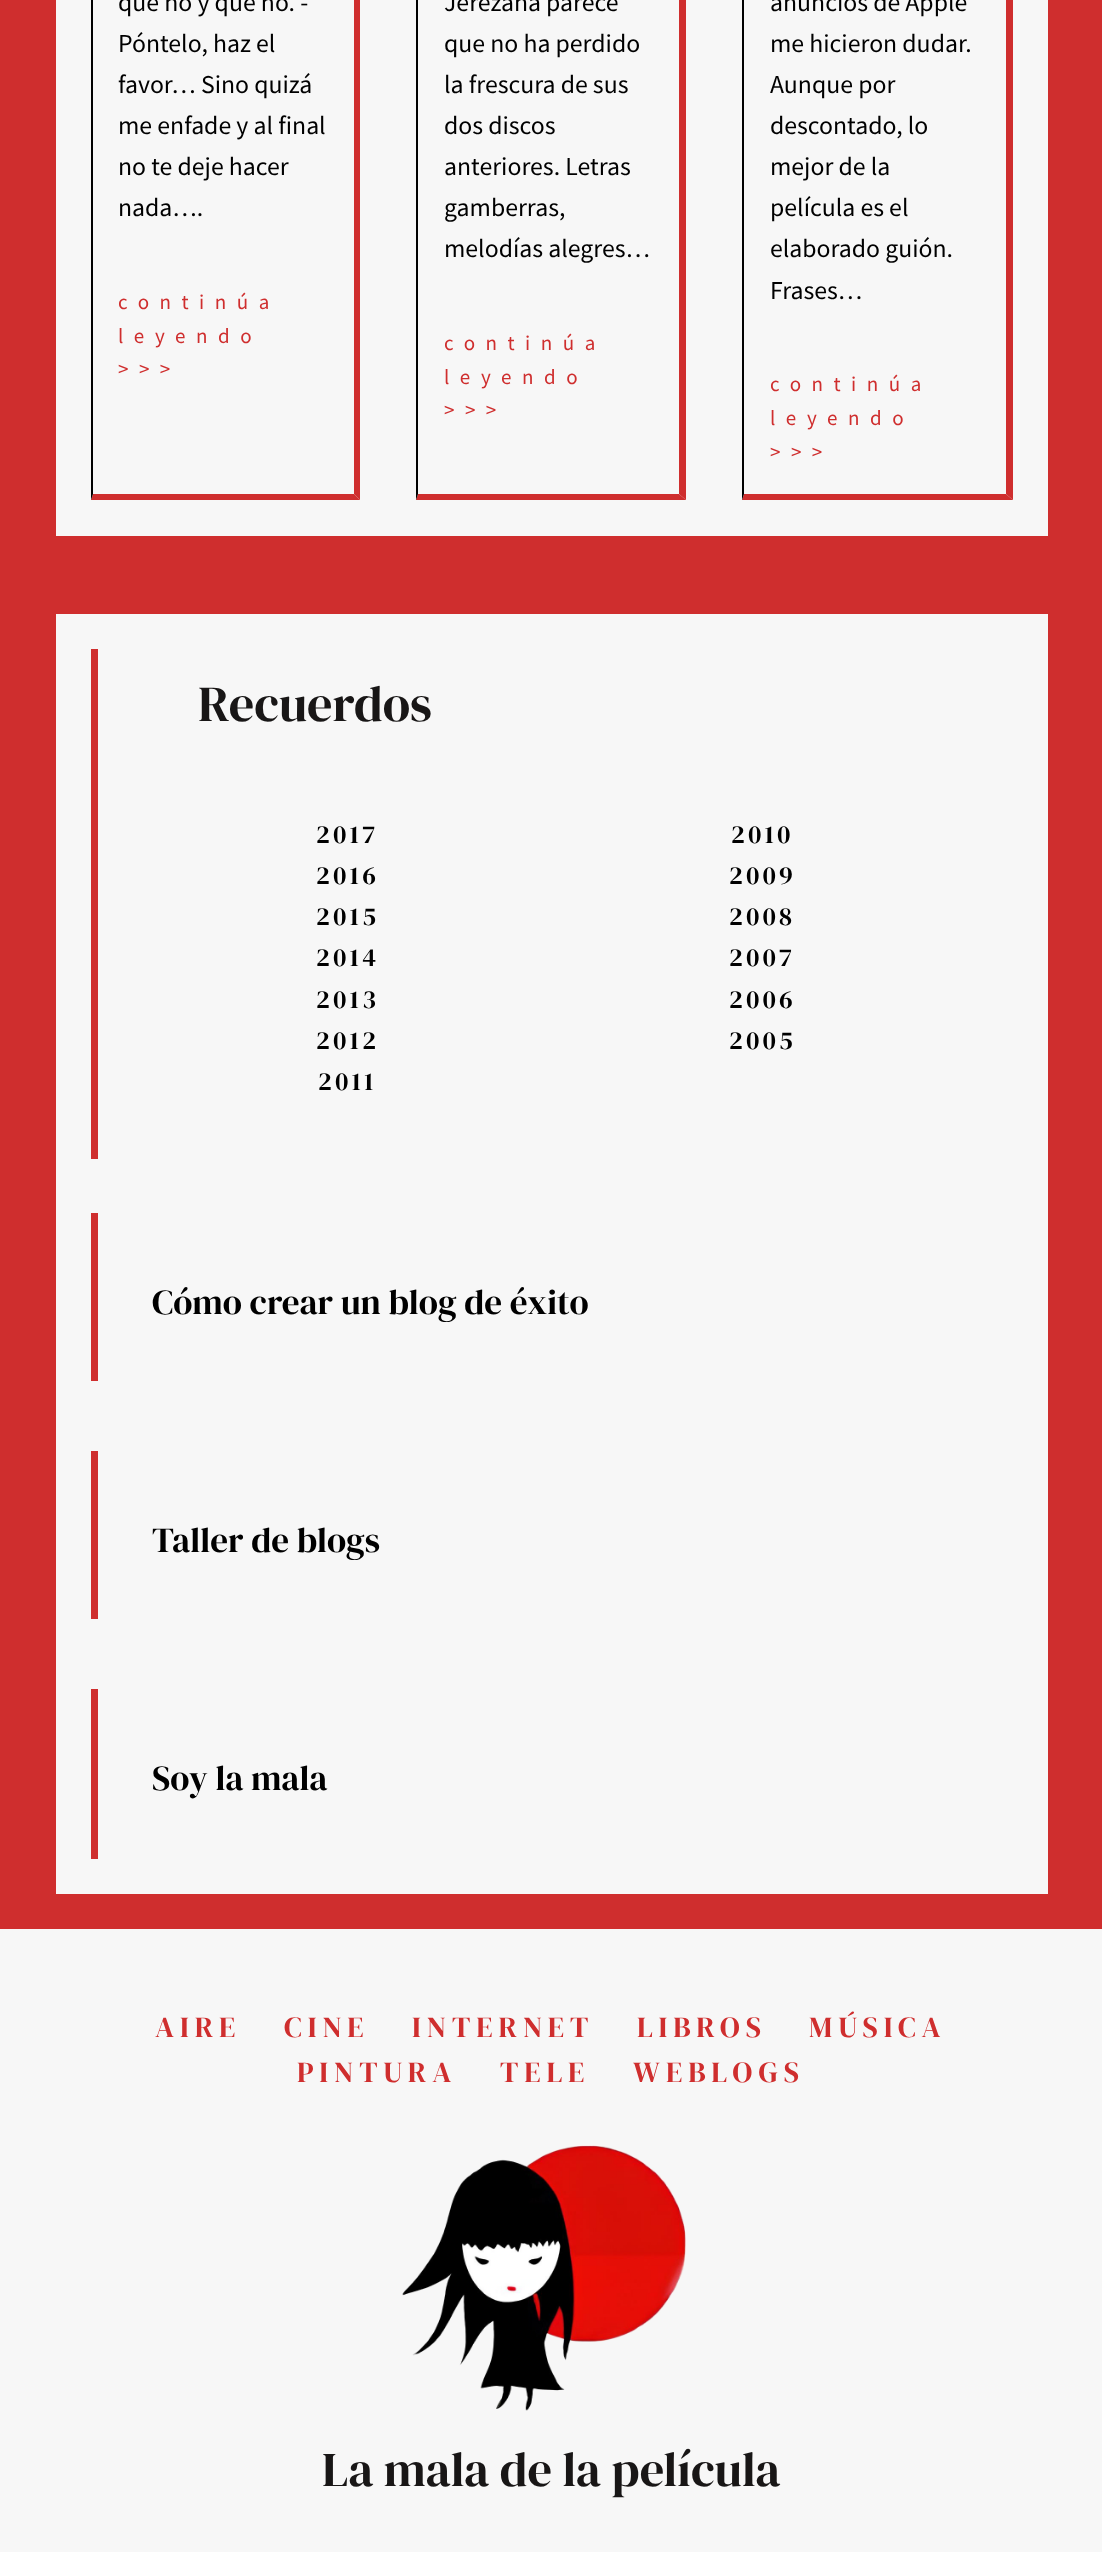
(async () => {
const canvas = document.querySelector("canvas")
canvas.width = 1102
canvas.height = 2552
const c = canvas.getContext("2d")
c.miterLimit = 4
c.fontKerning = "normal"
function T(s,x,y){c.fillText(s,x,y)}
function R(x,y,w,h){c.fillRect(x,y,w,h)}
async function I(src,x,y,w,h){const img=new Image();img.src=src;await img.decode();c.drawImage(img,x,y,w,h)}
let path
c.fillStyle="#f7f7f7"
R(0,0,1102,2552)
c.fillStyle="#cf2e2e"
R(0,0,1102,1929)
c.fillStyle="#f7f7f7"
R(56,0,992,536)
c.fillStyle="#cf2e2e"
path = new Path2D("M360-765v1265l-6-6v-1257z")
c.fill(path)
path = new Path2D("M360 500h-269l2-6h261z")
c.fill(path)
c.fillStyle="#000"
path = new Path2D("M91 500v-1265l2 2v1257z")
c.fill(path)
c.font="25.75px Source Sans Pro"
T("que no y que no. -",118,11)
T("Póntelo, haz el",118,52)
T("favor… Sino quizá",118,93)
T("me enfade y al final",118,134)
T("no te deje hacer",118,175)
T("nada….",118,216)
c.letterSpacing="10.5px"
c.font="21px Source Sans Pro"
c.fillStyle="#cf2e2e"
T("continúa",118,309)
T("leyendo",118,343)
T(">>>",118,376)
path = new Path2D("M686-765v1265l-7-6v-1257z")
c.fill(path)
path = new Path2D("M686 500h-270l2-6h261z")
c.fill(path)
c.fillStyle="#000"
path = new Path2D("M416 500v-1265l2 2v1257z")
c.fill(path)
c.letterSpacing="0px"
c.font="25.75px Source Sans Pro"
T("Jerezana parece",444,11)
T("que no ha perdido",444,52)
T("la frescura de sus",444,93)
T("dos discos",444,134)
T("anteriores. Letras",444,175)
T("gamberras,",444,216)
T("melodías alegres…",444,257)
c.letterSpacing="10.5px"
c.font="21px Source Sans Pro"
c.fillStyle="#cf2e2e"
T("continúa",444,350)
T("leyendo",444,384)
T(">>>",444,417)
path = new Path2D("M1013-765v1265l-7-6v-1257z")
c.fill(path)
path = new Path2D("M1013 500h-271l2-6h262z")
c.fill(path)
c.fillStyle="#000"
path = new Path2D("M742 500v-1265l2 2v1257z")
c.fill(path)
c.letterSpacing="0px"
c.font="25.75px Source Sans Pro"
T("anuncios de Apple",770,11)
T("me hicieron dudar.",770,52)
T("Aunque por",770,93)
T("descontado, lo",770,134)
T("mejor de la",770,175)
T("película es el",770,216)
T("elaborado guión.",770,257)
T("Frases…",770,299)
c.letterSpacing="10.5px"
c.font="21px Source Sans Pro"
c.fillStyle="#cf2e2e"
T("continúa",770,391)
T("leyendo",770,425)
T(">>>",770,459)
c.fillStyle="#f7f7f7"
R(56,614,992,1280)
c.fillStyle="#cf2e2e"
R(91,649,7,510)
c.letterSpacing="0px"
c.font="50.25px DM Serif Display"
c.fillStyle="#181616"
T("Recuerdos",198,721)
c.letterSpacing="3.5px"
c.font="25.75px DM Serif Display"
c.fillStyle="#000"
T("2017",316,843)
T("2010",731,843)
T("2016",316,884)
T("2009",729,884)
T("2015",316,925)
T("2008",729,925)
T("2014",316,966)
T("2007",729,966)
T("2013",316,1008)
T("2006",729,1008)
T("2012",316,1049)
T("2005",729,1049)
T("2011",318,1090)
c.fillStyle="#cf2e2e"
R(91,1213,7,168)
c.letterSpacing="0px"
c.font="35.1px DM Serif Display"
c.fillStyle="#000"
T("Cómo crear un blog de éxito",152,1314)
c.fillStyle="#cf2e2e"
R(91,1451,7,168)
c.fillStyle="#000"
T("Taller de blogs",152,1552)
c.fillStyle="#cf2e2e"
R(91,1689,7,170)
c.fillStyle="#000"
T("Soy la mala",152,1790)
c.letterSpacing="6px"
c.font="29.25px DM Serif Display"
c.fillStyle="#cf2e2e"
T("AIRE",155,2037)
T("CINE",284,2037)
T("INTERNET",412,2037)
T("LIBROS",637,2037)
T("MÚSICA",809,2037)
T("PINTURA",297,2082)
T("TELE",500,2082)
T("WEBLOGS",633,2082)
await I("1.png",402,2145,284,266)
c.letterSpacing="0px"
c.font="48.4px DM Serif Display"
c.fillStyle="#181616"
T("La mala de la película",322,2486)
})()
